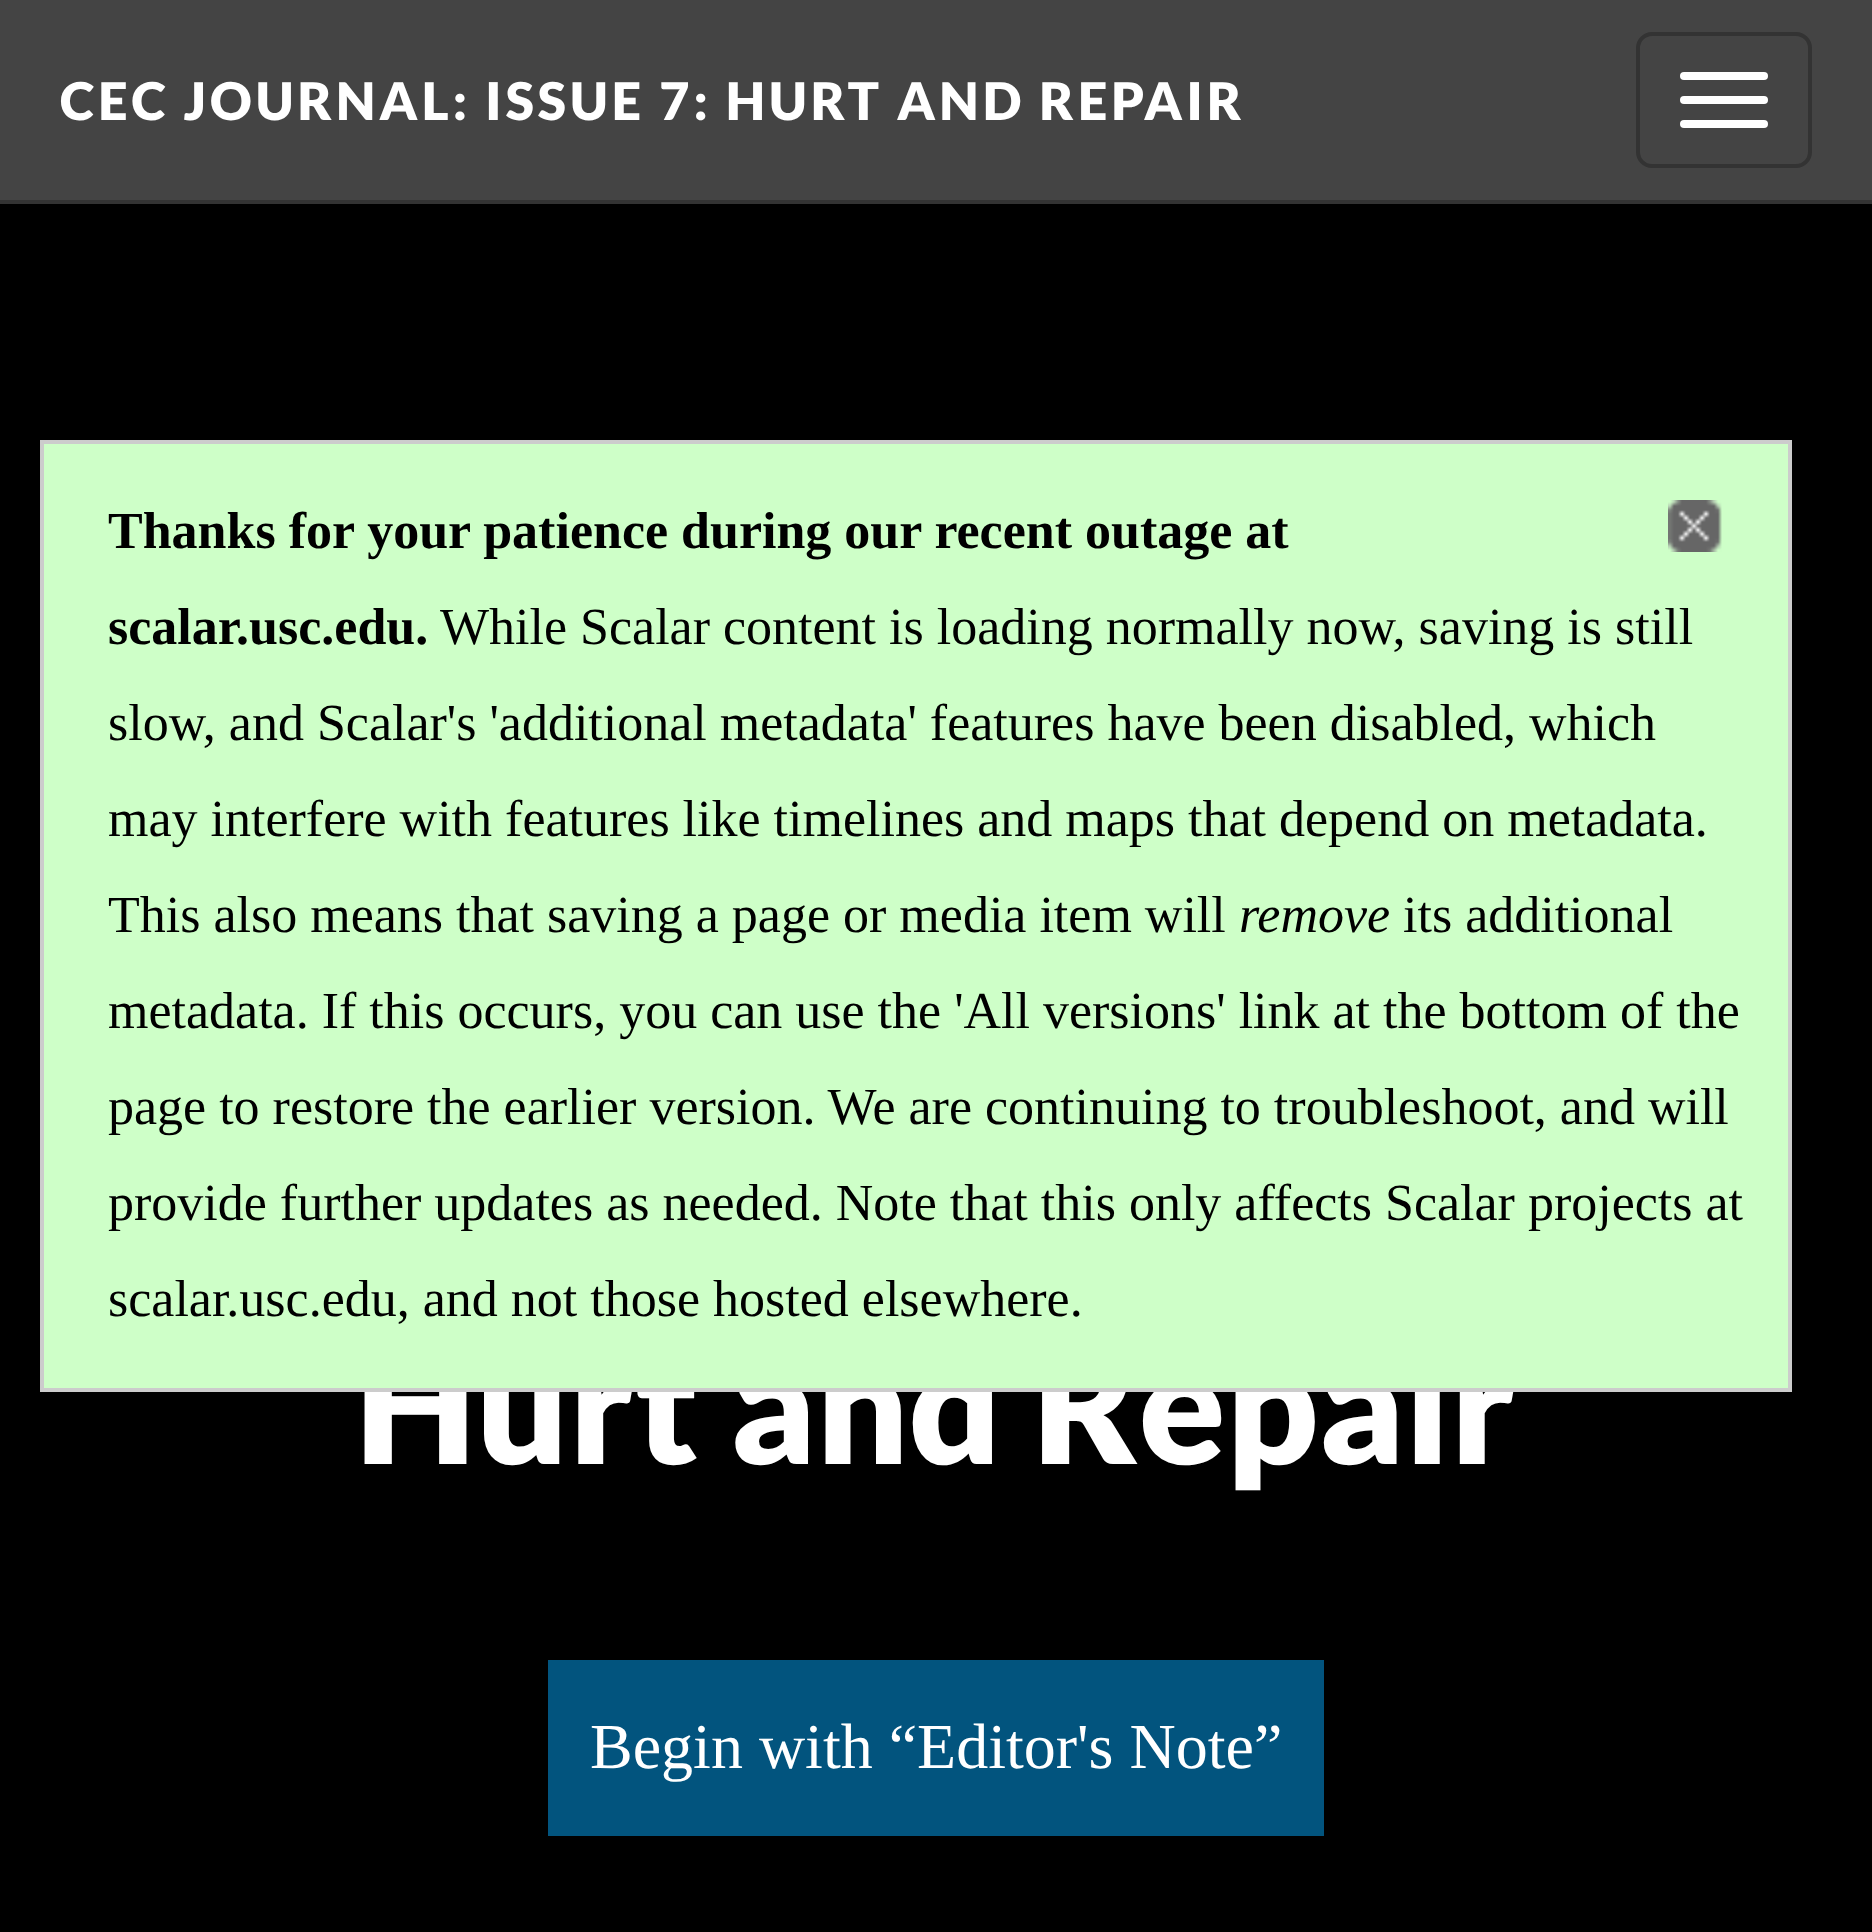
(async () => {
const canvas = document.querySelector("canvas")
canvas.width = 1872
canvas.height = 1932
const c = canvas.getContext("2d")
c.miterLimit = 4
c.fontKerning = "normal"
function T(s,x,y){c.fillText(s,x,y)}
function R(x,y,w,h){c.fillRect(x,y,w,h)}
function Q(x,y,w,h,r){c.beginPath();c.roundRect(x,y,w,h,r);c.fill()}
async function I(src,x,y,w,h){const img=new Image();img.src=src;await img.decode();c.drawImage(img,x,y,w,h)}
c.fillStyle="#000"
R(0,0,1872,1932)
c.fillStyle="#444"
R(0,0,1872,200)
c.fillStyle="#333"
R(0,200,1872,4)
c.letterSpacing="4px"
c.font="900 52px Lato"
c.fillStyle="#fff"
T("CEC JOURNAL: ISSUE 7: HURT AND REPAIR",60,120)
c.beginPath()
c.roundRect(1638,34,172,132,14)
c.strokeStyle="#333"
c.lineWidth=4
c.stroke()
Q(1680,72,88,8,4)
Q(1680,96,88,8,4)
Q(1680,120,88,8,4)
c.letterSpacing="0px"
c.font="900 160px Lato"
T("Hurt and Repair",355,1464)
c.fillStyle="#ceffc8"
c.beginPath()
c.rect(42,442,1748,948)
c.fill()
c.strokeStyle="#ccc"
c.stroke()
c.font="bold 52px Liberation Serif"
c.fillStyle="#000"
T("Thanks for your patience during our recent outage at",108,548)
await I("1.png",1668,500,54,52)
T("scalar.usc.edu.",108,644)
c.font="52px Liberation Serif"
T("While Scalar content is loading normally now, saving is still",440,644)
T("slow, and Scalar's 'additional metadata' features have been disabled, which",108,740)
T("may interfere with features like timelines and maps that depend on metadata.",108,836)
T("This also means that saving a page or media item will",108,932)
c.font="italic 52px Liberation Serif"
T("remove",1239,932)
c.font="52px Liberation Serif"
T("its additional",1403,932)
T("metadata. If this occurs, you can use the 'All versions' link at the bottom of the",108,1028)
T("page to restore the earlier version. We are continuing to troubleshoot, and will",108,1124)
T("provide further updates as needed. Note that this only affects Scalar projects at",108,1220)
T("scalar.usc.edu, and not those hosted elsewhere.",108,1316)
c.fillStyle="#02547e"
R(548,1660,776,176)
c.font="64px Liberation Serif"
c.fillStyle="#fff"
T("Begin with “Editor's Note”",590,1768)
})()
